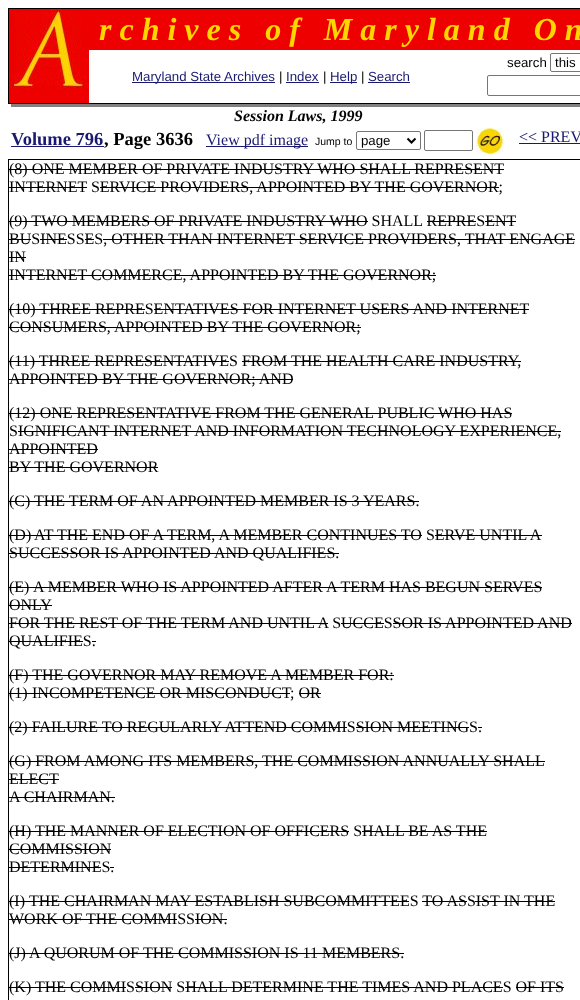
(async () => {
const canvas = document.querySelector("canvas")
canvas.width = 580
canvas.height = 1000
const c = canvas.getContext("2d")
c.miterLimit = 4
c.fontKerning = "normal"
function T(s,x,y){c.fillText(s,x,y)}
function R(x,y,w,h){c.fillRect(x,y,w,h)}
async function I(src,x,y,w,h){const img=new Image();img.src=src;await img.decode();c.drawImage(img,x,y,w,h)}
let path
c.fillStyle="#fff"
R(0,0,580,1000)
c.fillStyle="#000"
R(8,8,1,96)
R(9,8,571,1)
c.fillStyle="#e00"
R(9,89,80,14)
await I("1.png",9,9,80,80)
R(89,9,491,41)
c.font="italic bold 32px Liberation Serif"
c.fillStyle="#ffd700"
T("r c h i v e s   o f   M a r y l a n d   O n",99,40)
c.font="13.25px Liberation Sans"
c.fillStyle="#000"
T("search",507,67)
c.beginPath()
c.roundRect(550.5,53.5,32,18,1.5)
c.strokeStyle="#767676"
c.stroke()
T("this",555,67)
c.beginPath()
c.roundRect(487.5,75.5,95,20,1.5)
c.stroke()
c.fillStyle="#191970"
R(132,82,143,1)
T("Maryland State Archives",132,81)
c.fillStyle="#000"
T("|",279,81)
c.fillStyle="#191970"
T("Index",286,81)
R(286,82,33,1)
c.fillStyle="#000"
T("|",323,81)
c.fillStyle="#191970"
R(330,82,27,1)
T("Help",330,81)
c.fillStyle="#000"
T("|",361,81)
c.fillStyle="#191970"
T("Search",368,81)
R(368,82,42,1)
c.fillStyle="#000"
R(9,103,571,1)
c.fillStyle="#808080"
R(8,104,572,3)
c.fillStyle="#fff"
R(8,104,3,3)
c.font="italic bold 16px Liberation Serif"
c.fillStyle="#000"
T("Session Laws, 1999",234,121)
c.font="bold 18.5px Liberation Serif"
c.fillStyle="#191970"
T("Volume 796",11,145)
c.fillStyle="#000"
T(", Page 3636",104,145)
c.fillStyle="#191970"
R(11,146,93,1)
R(206,146,102,1)
c.font="16px Liberation Serif"
T("View pdf image",206,145)
c.font="10.5px Liberation Sans"
c.fillStyle="#000"
T("Jump to",315,145)
c.beginPath()
c.roundRect(356.5,131.5,64,18,1.5)
c.stroke()
path = new Path2D("M407.5 138.5l4 4l4-4")
c.strokeStyle="#000"
c.lineWidth=2
c.stroke(path)
c.font="13.25px Liberation Sans"
T("page",361,145)
c.beginPath()
c.roundRect(424.5,130.5,48,20,1.5)
c.strokeStyle="#767676"
c.lineWidth=1
c.stroke()
await I("2.png",476,128,28,27)
c.font="16px Liberation Serif"
c.fillStyle="#191970"
T("<< PREV",519,142)
R(519,143,61,1)
c.fillStyle="#000"
R(8,159,1,841)
R(9,159,571,1)
T("(8) ONE MEMBER OF PRIVATE INDUSTRY WHO SHALL REPRESENT",9,174)
R(9,169,495,1)
T("INTERNET SERVICE PROVIDERS, APPOINTED BY THE GOVERNOR;",9,192)
R(9,187,78,1)
R(100,187,399,1)
T("(9) TWO MEMBERS OF PRIVATE INDUSTRY WHO SHALL REPRESENT",9,226)
R(9,221,359,1)
R(427,221,49,1)
T("BUSINESSES, OTHER THAN INTERNET SERVICE PROVIDERS, THAT ENGAGE",9,244)
R(485,221,31,1)
R(9,239,22,1)
R(40,239,27,1)
R(85,239,9,1)
T("IN",9,262)
R(9,257,17,1)
T("INTERNET COMMERCE, APPOINTED BY THE GOVERNOR;",9,280)
R(103,239,472,1)
R(9,275,427,1)
T("(10) THREE REPRESENTATIVES FOR INTERNET USERS AND INTERNET",9,314)
R(9,309,136,1)
T("CONSUMERS, APPOINTED BY THE GOVERNOR;",9,332)
R(154,309,375,1)
R(9,327,352,1)
T("(11) THREE REPRESENTATIVES FROM THE HEALTH CARE INDUSTRY,",9,366)
R(9,361,220,1)
T("APPOINTED BY THE GOVERNOR; AND",9,384)
R(242,361,279,1)
R(9,379,284,1)
T("(12) ONE REPRESENTATIVE FROM THE GENERAL PUBLIC WHO HAS",9,418)
R(9,413,503,1)
T("SIGNIFICANT INTERNET AND INFORMATION TECHNOLOGY EXPERIENCE,",9,436)
T("APPOINTED",9,454)
R(18,431,543,1)
R(9,449,89,1)
T("BY THE GOVERNOR",9,472)
R(9,467,149,1)
T("(C) THE TERM OF AN APPOINTED MEMBER IS 3 YEARS.",9,506)
R(9,501,410,1)
T("(D)",9,540)
R(9,535,25,1)
T("AT THE END OF A TERM, A MEMBER CONTINUES TO SERVE UNTIL A",34,540)
R(34,535,388,1)
T("SUCCESSOR IS APPOINTED AND QUALIFIES.",9,558)
R(435,535,107,1)
R(9,553,330,1)
T("(E)",9,592)
R(9,587,24,1)
T("A MEMBER WHO IS APPOINTED AFTER A TERM HAS BEGUN SERVES",33,592)
R(33,587,509,1)
T("ONLY",9,610)
R(9,605,43,1)
T("FOR THE REST OF THE TERM AND UNTIL A SUCCESSOR IS APPOINTED AND",9,628)
R(9,623,319,1)
R(341,623,43,1)
T("QUALIFIES.",9,646)
R(393,623,179,1)
R(9,641,74,1)
R(92,641,4,1)
T("(F) THE GOVERNOR MAY REMOVE A MEMBER FOR:",9,680)
R(9,675,385,1)
T("(1)",9,698)
R(9,693,23,1)
T("INCOMPETENCE OR MISCONDUCT",32,698)
R(32,693,258,1)
T("; OR",290,698)
R(299,693,22,1)
T("(2) FAILURE TO REGULARLY ATTEND COMMISSION MEETINGS.",9,732)
R(9,727,338,1)
R(356,727,113,1)
R(478,727,4,1)
T("(G) FROM AMONG ITS MEMBERS, THE COMMISSION ANNUALLY SHALL",9,766)
R(9,761,536,1)
T("ELECT",9,784)
R(9,779,50,1)
T("A CHAIRMAN.",9,802)
R(9,797,106,1)
T("(H) THE MANNER OF ELECTION OF OFFICERS SHALL BE AS THE",9,836)
R(9,831,340,1)
T("COMMISSION",9,854)
R(362,831,125,1)
R(9,849,102,1)
T("DETERMINES.",9,872)
R(9,867,92,1)
R(110,867,4,1)
T("(I)",9,906)
R(9,901,20,1)
T("THE CHAIRMAN MAY ESTABLISH SUBCOMMITTEES TO ASSIST IN THE",29,906)
R(29,901,380,1)
R(422,901,45,1)
T("WORK OF THE COMMISSION.",9,924)
R(475,901,80,1)
R(9,919,168,1)
R(195,919,32,1)
T("(J)",9,958)
R(9,953,20,1)
T("A QUORUM OF THE COMMISSION IS 11 MEMBERS.",29,958)
R(29,953,375,1)
T("(K) THE COMMISSION SHALL DETERMINE THE TIMES AND PLACES OF ITS",9,992)
R(9,987,117,1)
R(135,987,37,1)
R(185,987,318,1)
R(516,987,48,1)
})()
